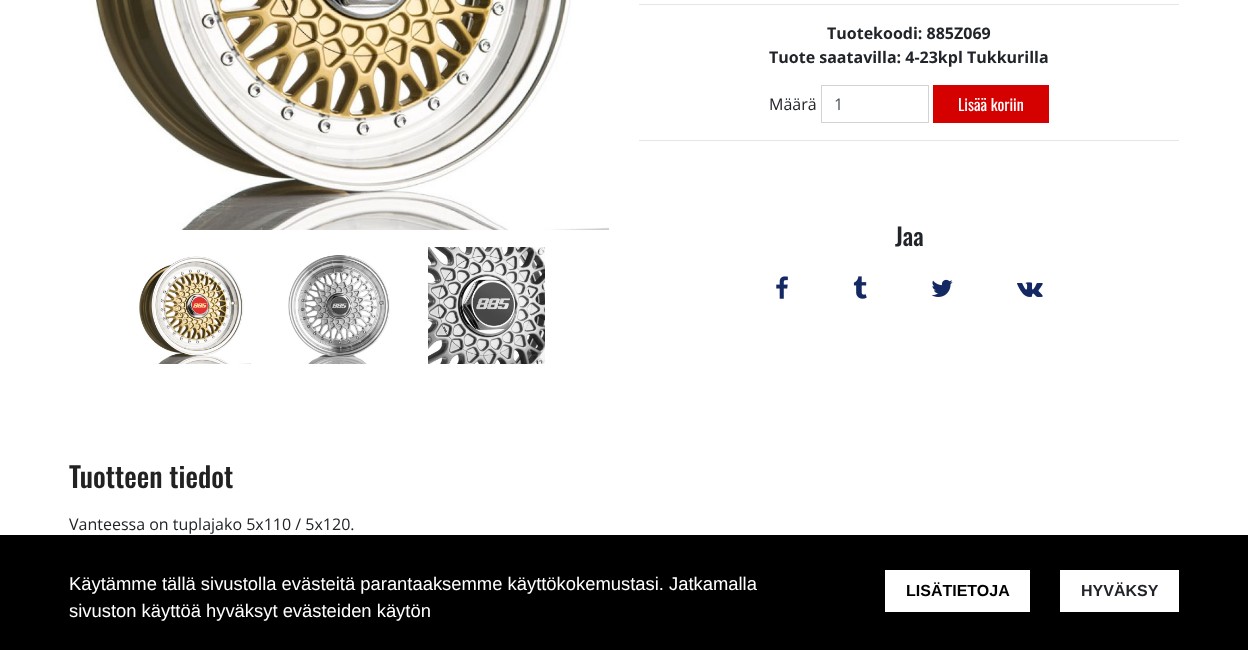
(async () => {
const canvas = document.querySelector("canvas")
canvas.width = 1248
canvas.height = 650
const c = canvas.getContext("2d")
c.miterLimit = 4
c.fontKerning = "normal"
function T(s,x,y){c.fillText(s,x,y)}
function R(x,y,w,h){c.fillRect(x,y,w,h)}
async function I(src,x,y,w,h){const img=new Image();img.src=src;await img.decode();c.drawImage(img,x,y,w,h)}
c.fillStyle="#fff"
R(0,0,1248,650)
await I("1.png",90,0,519,230)
await I("2.png",139,256,112,108)
await I("3.png",288,255,102,109)
await I("4.png",428,247,117,117)
c.fillStyle="#e6e6e6"
R(639,4,540,1)
c.font="bold 16px Open Sans"
c.fillStyle="#212529"
T("Tuotekoodi: 885Z069",827,39)
T("Tuote saatavilla: 4-23kpl Tukkurilla",769,63)
c.font="16px Open Sans"
T("Määrä",769,110)
c.strokeStyle="#ced4da"
c.strokeRect(821.5,85.5,107,37)
c.fillStyle="#495057"
T("1",834,110)
c.fillStyle="#d50000"
R(933,85,116,38)
c.font="16px Oswald"
c.fillStyle="#fff"
T("Lisää koriin",958,111)
c.fillStyle="#e6e6e6"
R(639,140,540,1)
c.font="500 24px Oswald"
c.fillStyle="#212529"
T("Jaa",895,246)
await I("5.png",776,276,12,23)
await I("6.png",853,276,14,23)
await I("7.png",931,279,22,18)
await I("8.png",1017,282,26,15)
c.font="500 28px Oswald"
c.fillStyle="#222"
T("Tuotteen tiedot",69,488)
c.font="16px Open Sans"
c.fillStyle="#212529"
T("Vanteessa on tuplajako 5x110 / 5x120.",69,530)
c.fillStyle="#000"
R(0,535,1248,115)
c.font="18.4px Liberation Sans"
c.fillStyle="#fff"
T("Käytämme tällä sivustolla evästeitä parantaaksemme käyttökokemustasi. Jatkamalla",69,590)
T("sivuston käyttöä hyväksyt evästeiden käytön",69,617)
R(885,570,145,42)
c.font="bold 16px Liberation Sans"
c.fillStyle="#000"
T("LISÄTIETOJA",906,596)
c.fillStyle="#fff"
R(1060,570,119,42)
c.fillStyle="#212529"
T("HYVÄKSY",1081,596)
})()
